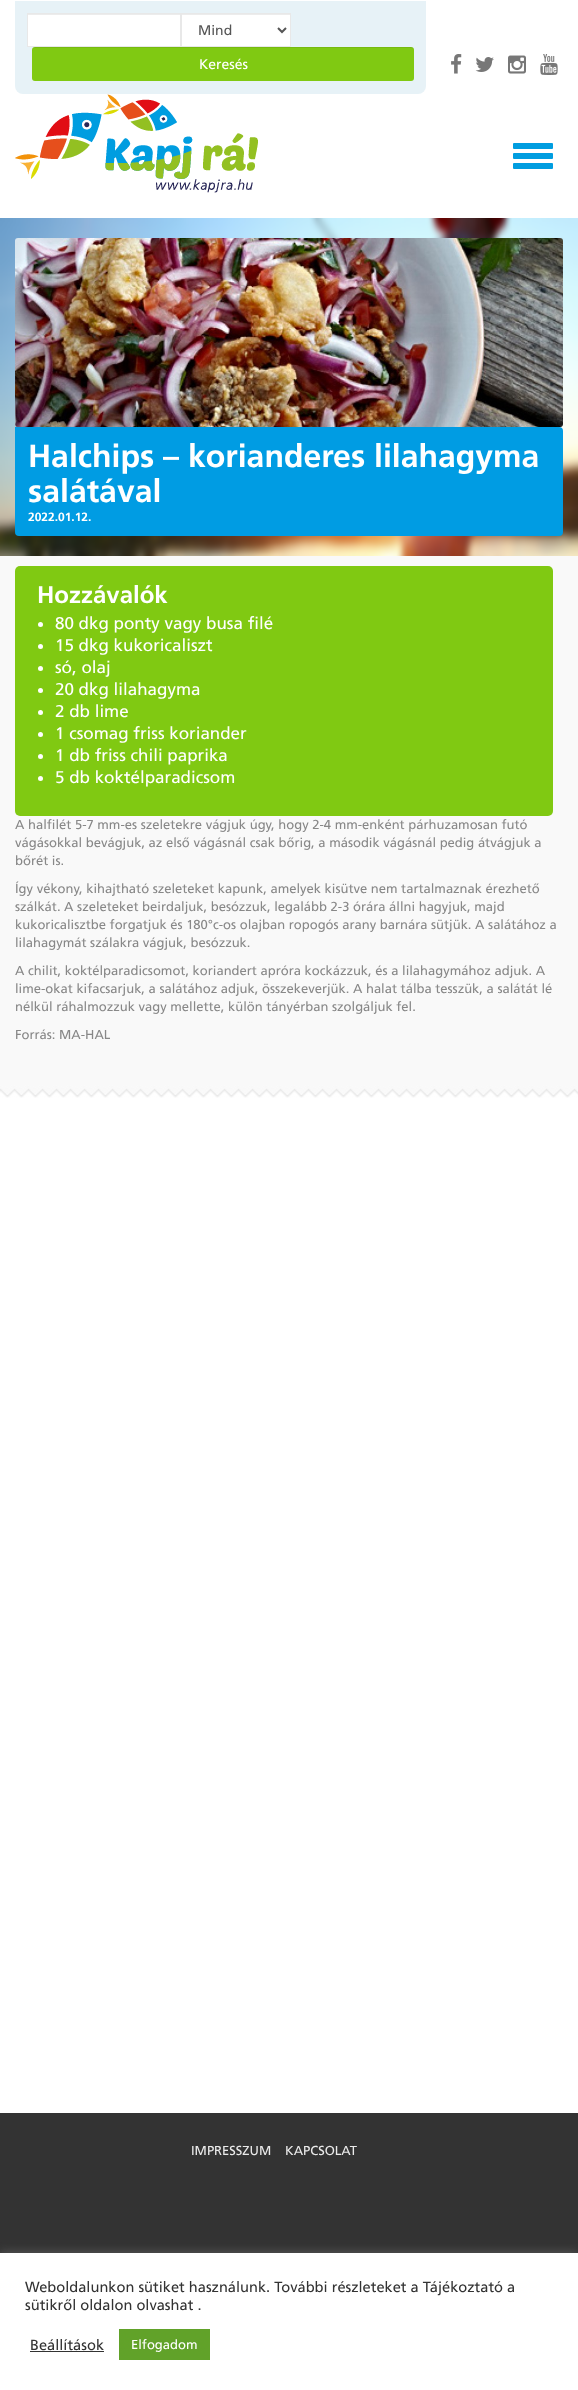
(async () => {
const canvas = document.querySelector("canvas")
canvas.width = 578
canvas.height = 2390
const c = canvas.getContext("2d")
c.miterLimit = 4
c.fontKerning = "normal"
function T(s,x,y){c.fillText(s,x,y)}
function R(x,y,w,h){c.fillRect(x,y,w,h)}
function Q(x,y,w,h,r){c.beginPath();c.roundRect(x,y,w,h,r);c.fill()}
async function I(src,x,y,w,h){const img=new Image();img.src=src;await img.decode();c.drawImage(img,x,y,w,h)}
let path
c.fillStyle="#fff"
R(0,0,578,2390)
c.fillStyle="#e7f2f7"
c.beginPath()
c.roundRect(15,1,411,93,[0,0,8,8])
c.fill()
c.fillStyle="#fff"
R(28,15,152,31)
c.fillStyle="#ececec"
R(28,14,152,1)
c.strokeStyle="#e8e8e8"
c.strokeRect(27.5,13.5,153,33)
c.fillStyle="#fff"
R(182,15,108,31)
c.fillStyle="#ececec"
R(182,14,108,1)
c.strokeRect(181.5,13.5,109,33)
path = new Path2D("M278 28l4 4l4-4")
c.strokeStyle="#555"
c.lineWidth=2
c.stroke(path)
c.font="14px 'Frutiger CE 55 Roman'"
c.fillStyle="#555"
T("Mind",198,35)
c.fillStyle="#80c912"
Q(32,47,382,34,3)
c.fillStyle="#00000012"
path = new Path2D("M35 48h376c2 0 3 1 3 3c0-2-1-4-3-4h-376l-2 1l-1 3c0-2 1-3 3-3z")
c.fill(path)
c.fillStyle="#fff"
T("Keresés",199,69)
await I("1.png",451,54,11,20)
await I("2.png",475,57,19,15)
await I("3.png",508,55,18,19)
await I("4.png",540,54,18,21)
await I("5.png",15,94,243,99)
c.fillStyle="#009de0"
Q(513,143,40,6,1)
Q(513,153,40,6,1)
Q(513,163,40,6,1)
await I("6.png",0,218,578,338)
await I("7.png",15,238,548,189)
c.fillStyle="#009ce3"
c.beginPath()
c.roundRect(15,427,548,109,[0,4,4,4])
c.fill()
c.font="bold 32px 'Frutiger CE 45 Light'"
c.fillStyle="#fff"
T("Halchips – korianderes lilahagyma",28,467)
T("salátával",28,502)
c.font="bold 12px 'Frutiger CE 45 Light'"
T("2022.01.12.",28,521)
c.fillStyle="#f9f9f9"
R(0,556,578,529)
c.fillStyle="#80c912"
Q(15,566,538,250,5)
c.font="bold 24px 'Frutiger CE 45 Light'"
c.fillStyle="#fff"
T("Hozzávalók",37,603)
c.beginPath()
c.arc(40.5,624.5,2.5,0,7)
c.fill()
c.font="17px 'Frutiger CE 55 Roman'"
T("80 dkg ponty vagy busa filé",55,629)
c.beginPath()
c.arc(40.5,646.5,2.5,0,7)
c.fill()
T("15 dkg kukoricaliszt",55,651)
c.beginPath()
c.arc(40.5,668.5,2.5,0,7)
c.fill()
T("só, olaj",55,673)
c.beginPath()
c.arc(40.5,690.5,2.5,0,7)
c.fill()
T("20 dkg lilahagyma",55,695)
c.beginPath()
c.arc(40.5,712.5,2.5,0,7)
c.fill()
T("2 db lime",55,717)
c.beginPath()
c.arc(40.5,734.5,2.5,0,7)
c.fill()
T("1 csomag friss koriander",55,739)
c.beginPath()
c.arc(40.5,756.5,2.5,0,7)
c.fill()
T("1 db friss chili paprika",55,761)
c.beginPath()
c.arc(40.5,778.5,2.5,0,7)
c.fill()
T("5 db koktélparadicsom",55,783)
c.font="13px 'Frutiger CE 55 Roman'"
c.fillStyle="#888"
T("A halfilét 5-7 mm-es szeletekre vágjuk úgy, hogy 2-4 mm-enként párhuzamosan futó",15,829)
T("vágásokkal bevágjuk, az első vágásnál csak bőrig, a második vágásnál pedig átvágjuk a",15,847)
T("bőrét is.",15,865)
T("Így vékony, kihajtható szeleteket kapunk, amelyek kisütve nem tartalmaznak érezhető",15,893)
T("szálkát. A szeleteket beirdaljuk, besózzuk, legalább 2-3 órára állni hagyjuk, majd",15,911)
T("kukoricalisztbe forgatjuk és 180°c-os olajban ropogós arany barnára sütjük. A salátához a",15,929)
T("lilahagymát szálakra vágjuk, besózzuk.",15,947)
T("A chilit, koktélparadicsomot, koriandert apróra kockázzuk, és a lilahagymához adjuk. A",15,975)
T("lime-okat kifacsarjuk, a salátához adjuk, összekeverjük. A halat tálba tesszük, a salátát lé",15,993)
T("nélkül ráhalmozzuk vagy mellette, külön tányérban szolgáljuk fel.",15,1011)
T("Forrás: MA-HAL",15,1039)
await I("8.png",0,1085,578,13)
c.fillStyle="#333"
R(0,2113,578,140)
c.fillStyle="#eaeaea"
T("IMPRESSZUM",191,2155)
T("KAPCSOLAT",285,2155)
c.fillStyle="#acabab4d"
c.filter="blur(5px)"
c.beginPath()
c.rect(0,2252,578,137)
c.fill()
c.filter="none"
c.fillStyle="#fff"
R(0,2253,578,137)
c.font="14.65px 'Frutiger CE 55 Roman'"
c.fillStyle="#333"
T("Weboldalunkon sütiket használunk. További részleteket a Tájékoztató a",25,2292)
T("sütikről oldalon olvashat .",25,2310)
T("Beállítások",30,2350)
R(30,2351,74,1)
c.fillStyle="#61a229"
R(119,2329,91,31)
c.font="13px 'Frutiger CE 55 Roman'"
c.fillStyle="#fff"
T("Elfogadom",131,2349)
})()
